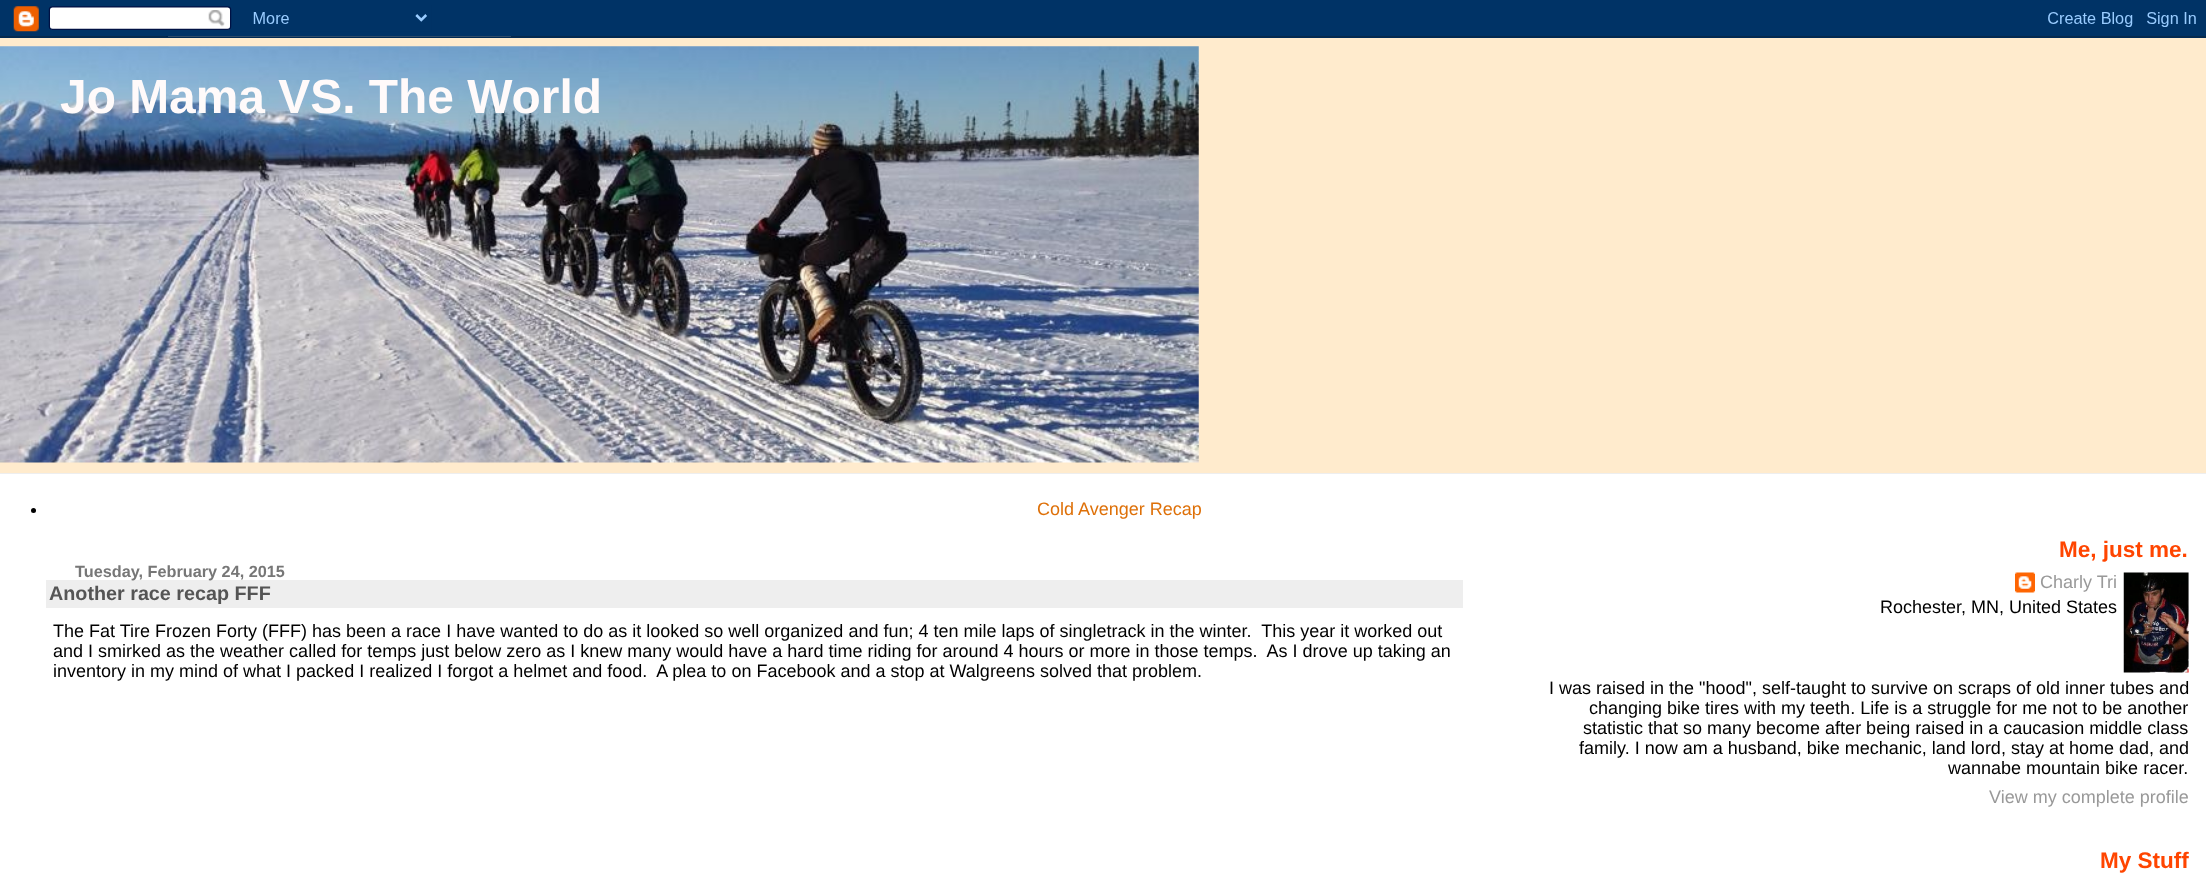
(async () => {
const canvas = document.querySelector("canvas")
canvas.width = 2206
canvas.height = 886
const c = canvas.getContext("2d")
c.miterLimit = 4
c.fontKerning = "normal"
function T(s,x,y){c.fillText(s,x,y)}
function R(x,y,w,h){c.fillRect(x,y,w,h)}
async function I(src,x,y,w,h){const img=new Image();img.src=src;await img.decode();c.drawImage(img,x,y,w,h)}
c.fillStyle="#fff"
R(0,0,2206,886)
await I("1.png",0,0,2206,38)
c.fillStyle="#ffebcd"
R(0,38,2206,435)
c.fillStyle="#eee"
R(0,473,2206,1)
await I("2.png",0,46,1199,417)
c.font="bold 47.9px Liberation Sans"
c.fillStyle="#fffafa"
T("Jo Mama VS. The World",60,113)
c.fillStyle="#000"
c.beginPath()
c.arc(33.5,510.5,2.5,0,7)
c.fill()
c.font="18px Liberation Sans"
c.fillStyle="#de7008"
T("Cold Avenger Recap",1037,515)
c.fillStyle="#eee"
R(46,580,1417,28)
c.font="bold 16.25px Liberation Sans"
c.fillStyle="#777"
T("Tuesday, February 24, 2015",75,577)
c.font="bold 19.75px Liberation Sans"
c.fillStyle="#555"
T("Another race recap FFF",49,600)
c.font="18px Liberation Sans"
c.fillStyle="#000"
T("The Fat Tire Frozen Forty (FFF) has been a race I have wanted to do as it looked so well organized and fun; 4 ten mile laps of singletrack in the winter.  This year it worked out",53,637)
T("and I smirked as the weather called for temps just below zero as I knew many would have a hard time riding for around 4 hours or more in those temps.  As I drove up taking an",53,657)
T("inventory in my mind of what I packed I realized I forgot a helmet and food.  A plea to on Facebook and a stop at Walgreens solved that problem.",53,677)
c.font="bold 22.5px Liberation Sans"
c.fillStyle="#ff4500"
T("Me, just me.",2059,557)
await I("3.png",2123,572,66,101)
await I("4.png",2015,572,20,21)
c.font="18px Liberation Sans"
c.fillStyle="#999"
T("Charly Tri",2040,588)
c.fillStyle="#000"
T("Rochester, MN, United States",1880,613)
T("I was raised in the \"hood\", self-taught to survive on scraps of old inner tubes and",1549,694)
T("changing bike tires with my teeth. Life is a struggle for me not to be another",1589,714)
T("statistic that so many become after being raised in a caucasion middle class",1583,734)
T("family. I now am a husband, bike mechanic, land lord, stay at home dad, and",1579,754)
T("wannabe mountain bike racer.",1948,774)
c.fillStyle="#999"
T("View my complete profile",1989,803)
c.font="bold 22.5px Liberation Sans"
c.fillStyle="#ff4500"
T("My Stuff",2100,868)
})()
